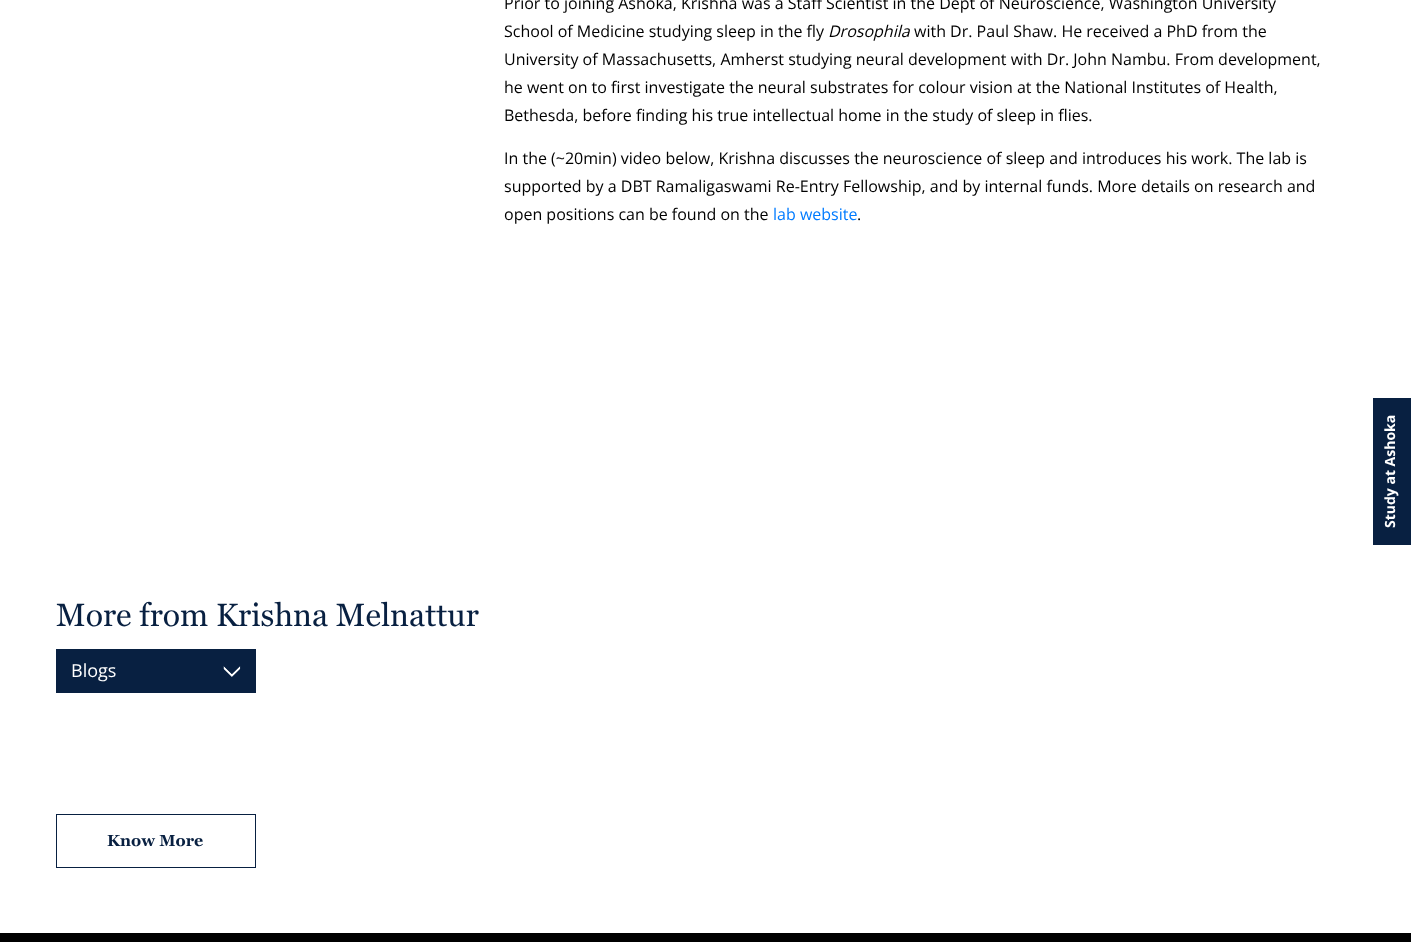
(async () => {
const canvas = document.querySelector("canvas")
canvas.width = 1411
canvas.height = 942
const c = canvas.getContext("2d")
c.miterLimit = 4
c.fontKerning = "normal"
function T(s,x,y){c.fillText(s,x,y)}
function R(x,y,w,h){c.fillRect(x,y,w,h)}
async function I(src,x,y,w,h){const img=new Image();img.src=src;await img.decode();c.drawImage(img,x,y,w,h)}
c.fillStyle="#fff"
R(0,0,1411,942)
c.font="16px Open Sans"
c.fillStyle="#010101"
T("Prior to joining Ashoka, Krishna was a Staff Scientist in the Dept of Neuroscience, Washington University",504,9)
T("School of Medicine studying sleep in the fly",504,37)
c.font="italic 16px Open Sans"
T("Drosophila",828,37)
c.font="16px Open Sans"
T("with Dr. Paul Shaw. He received a PhD from the",914,37)
T("University of Massachusetts, Amherst studying neural development with Dr. John Nambu. From development,",504,65)
T("he went on to first investigate the neural substrates for colour vision at the National Institutes of Health,",504,93)
T("Bethesda, before finding his true intellectual home in the study of sleep in flies.",504,121)
T("In the (~20min) video below, Krishna discusses the neuroscience of sleep and introduces his work. The lab is",504,164)
T("supported by a DBT Ramaligaswami Re-Entry Fellowship, and by internal funds. More details on research and",504,192)
T("open positions can be found on the",504,220)
c.fillStyle="#007bff"
T("lab website",773,220)
c.fillStyle="#010101"
T(".",857,220)
c.fillStyle="#082041"
R(1373,398,38,147)
c.font="bold 14px Open Sans"
c.fillStyle="#fff"
c.save()
c.translate(1395,528)
c.rotate(-90 * Math.PI / 180)
c.fillText("Study at Ashoka",0,0)
c.restore()
c.font="32px Georgia"
c.fillStyle="#082041"
T("More from Krishna Melnattur",56,626)
R(56,649,200,44)
await I("1.png",223,666,18,11)
c.font="18px Open Sans"
c.fillStyle="#fff"
T("Blogs",71,677)
c.strokeStyle="#082041"
c.strokeRect(56.5,814.5,199,53)
c.font="bold 16px Georgia"
c.fillStyle="#082041"
T("Know More",107,846)
c.fillStyle="#000"
R(0,933,1411,9)
})()
